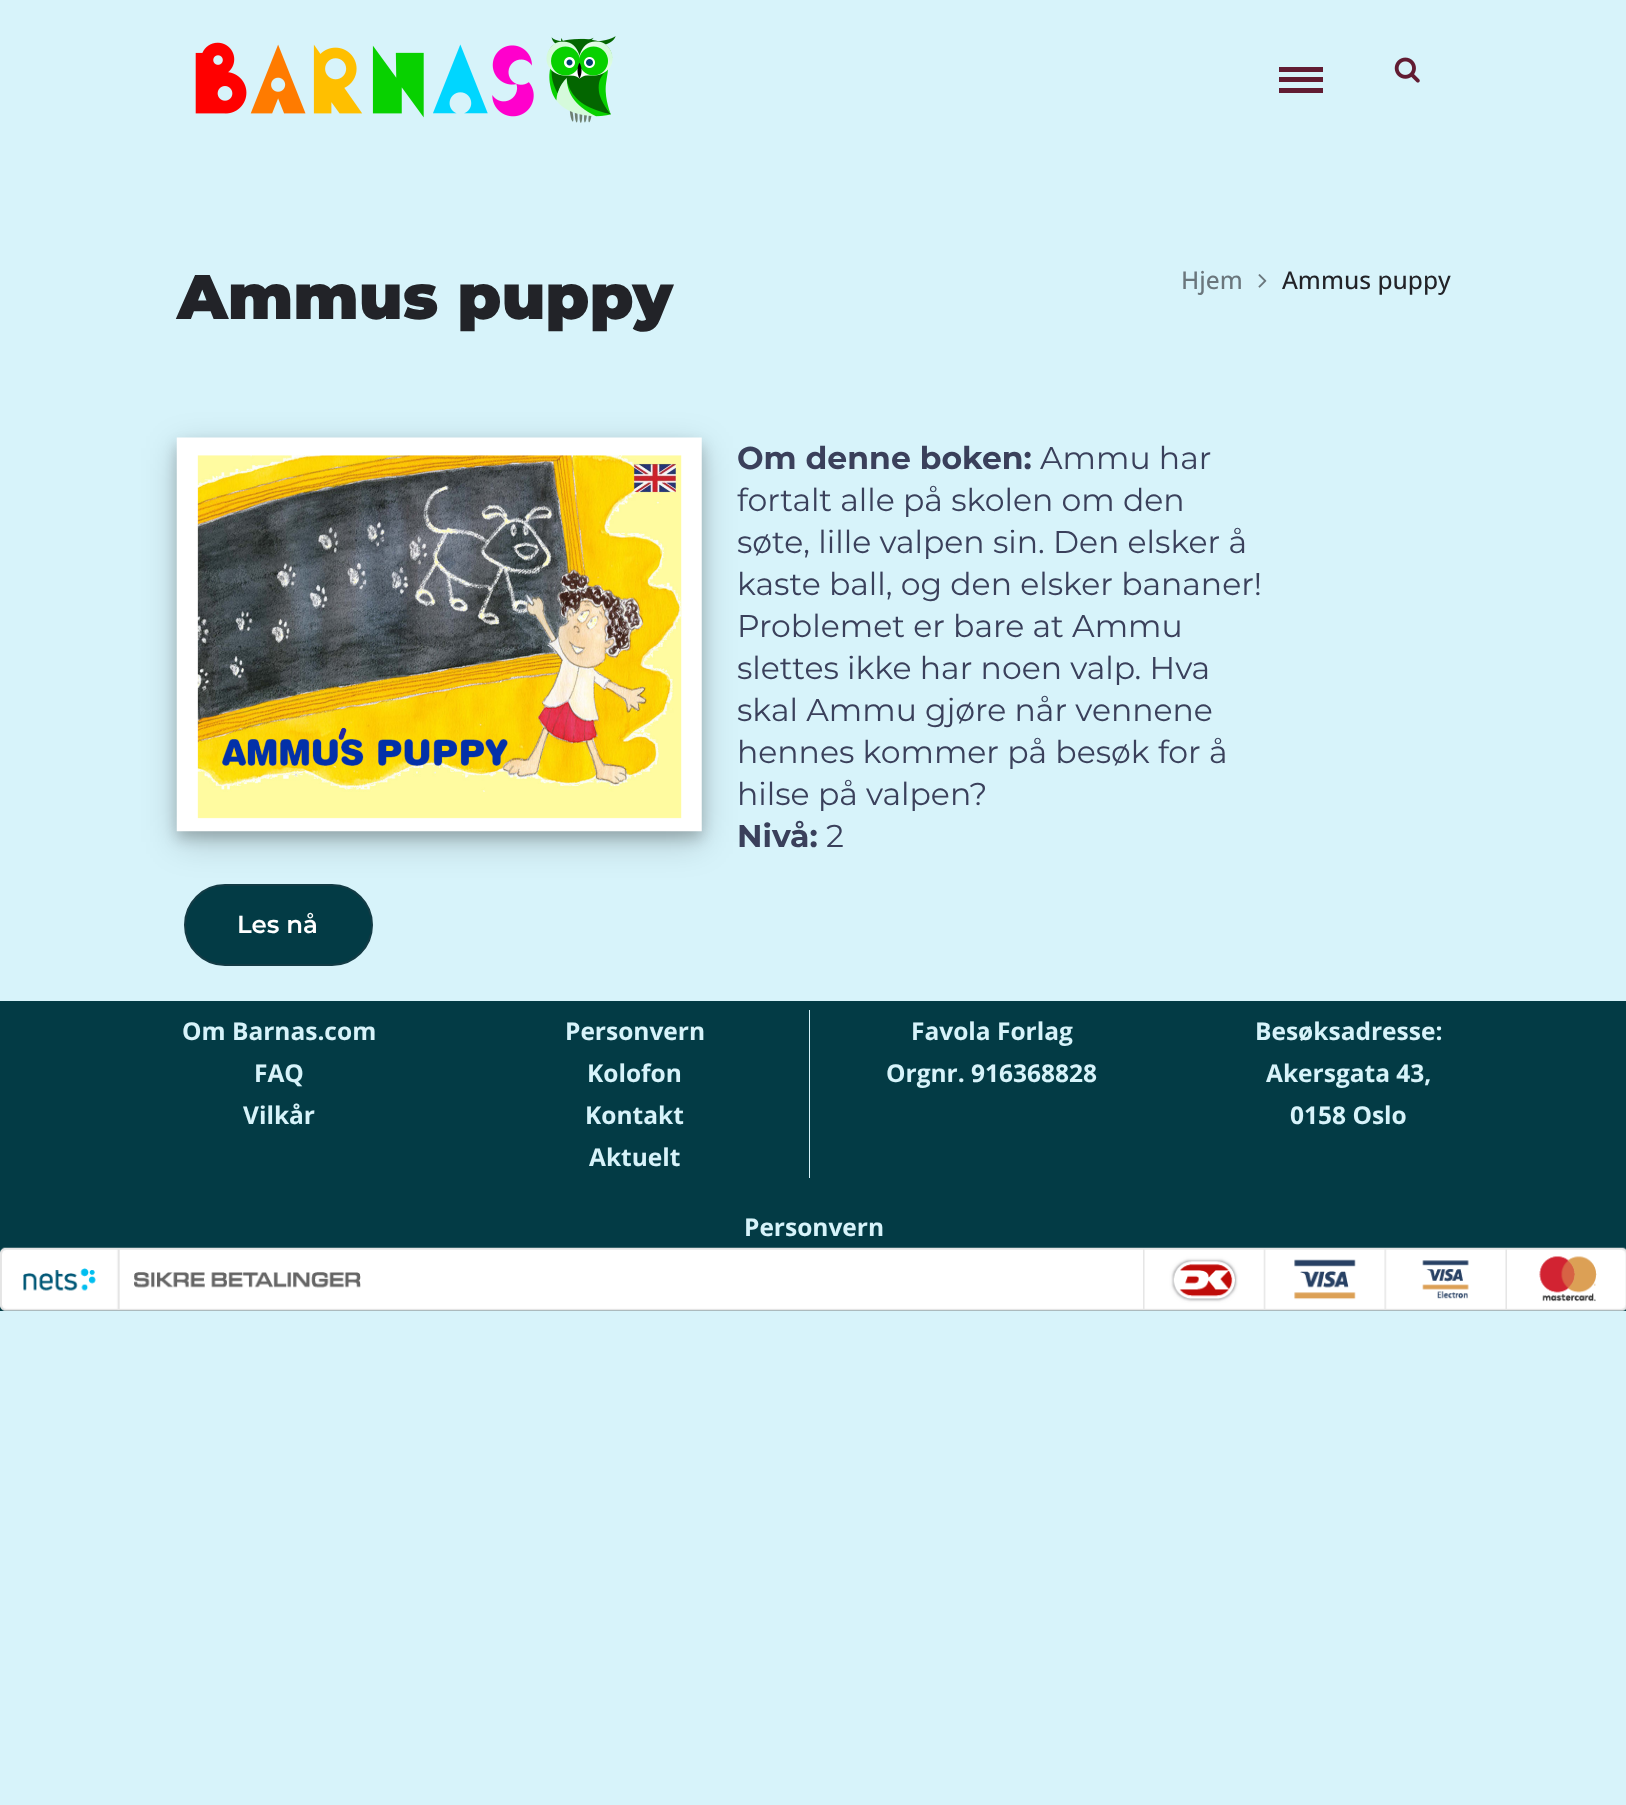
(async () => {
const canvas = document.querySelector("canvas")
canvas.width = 1626
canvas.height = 1805
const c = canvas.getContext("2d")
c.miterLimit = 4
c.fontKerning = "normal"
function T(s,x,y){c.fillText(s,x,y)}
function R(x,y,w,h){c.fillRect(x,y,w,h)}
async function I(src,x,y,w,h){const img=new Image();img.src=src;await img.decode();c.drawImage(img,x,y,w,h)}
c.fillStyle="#d7f3fa"
R(0,0,1626,1805)
await I("1.png",195,36,421,87)
c.fillStyle="#611c32"
R(1279,77,44,5)
R(1279,67,44,5)
R(1279,88,44,5)
await I("2.png",1394,57,26,26)
c.font="900 63px Montserrat"
c.fillStyle="#222328"
T("Ammus puppy",177,319)
c.font="500 24.5px Open Sans"
c.fillStyle="#6a767c"
T("Hjem",1181,289)
await I("3.png",1258,274,9,14)
c.fillStyle="#222328"
T("Ammus puppy",1282,289)
c.fillStyle="#00000030"
c.filter="blur(17.5px)"
c.beginPath()
c.rect(177,448,525,394)
c.fill()
c.filter="none"
c.font="bold 31.5px Montserrat"
c.fillStyle="#3a405b"
T("Om denne boken:",737,469)
c.font="31.5px Montserrat"
T("Ammu har",1040,469)
T("fortalt alle på skolen om den",737,511)
T("søte, lille valpen sin. Den elsker å",737,553)
T("kaste ball, og den elsker bananer!",737,595)
T("Problemet er bare at Ammu",737,637)
T("slettes ikke har noen valp. Hva",737,679)
T("skal Ammu gjøre når vennene",737,721)
T("hennes kommer på besøk for å",737,763)
T("hilse på valpen?",737,805)
c.font="bold 31.5px Montserrat"
T("Nivå:",737,847)
c.font="31.5px Montserrat"
T("2",826,847)
c.fillStyle="#00000033"
c.filter="blur(7px)"
c.beginPath()
c.rect(177,445,525,393)
c.fill()
c.filter="none"
await I("4.png",176,437,526,395)
c.fillStyle="#033b45"
c.beginPath()
c.roundRect(185,885,187,80,40)
c.fill()
c.strokeStyle="#133b45"
c.lineWidth=2
c.stroke()
c.font="600 24.5px Montserrat"
c.fillStyle="#fff"
T("Les nå",237,933)
c.fillStyle="#033b45"
R(0,1001,1626,310)
c.font="bold 24.5px Open Sans"
c.fillStyle="#d7f3fa"
T("Om Barnas.com",182,1040)
T("FAQ",254,1082)
T("Vilkår",243,1124)
R(809,1010,1,168)
T("Personvern",565,1040)
T("Kolofon",587,1082)
T("Kontakt",585,1124)
T("Aktuelt",589,1166)
T("Favola Forlag",911,1040)
T("Orgnr. 916368828",886,1082)
T("Besøksadresse:",1255,1040)
T("Akersgata 43,",1266,1082)
T("0158 Oslo",1290,1124)
T("Personvern",744,1236)
await I("5.png",0,1247,1626,64)
})()
